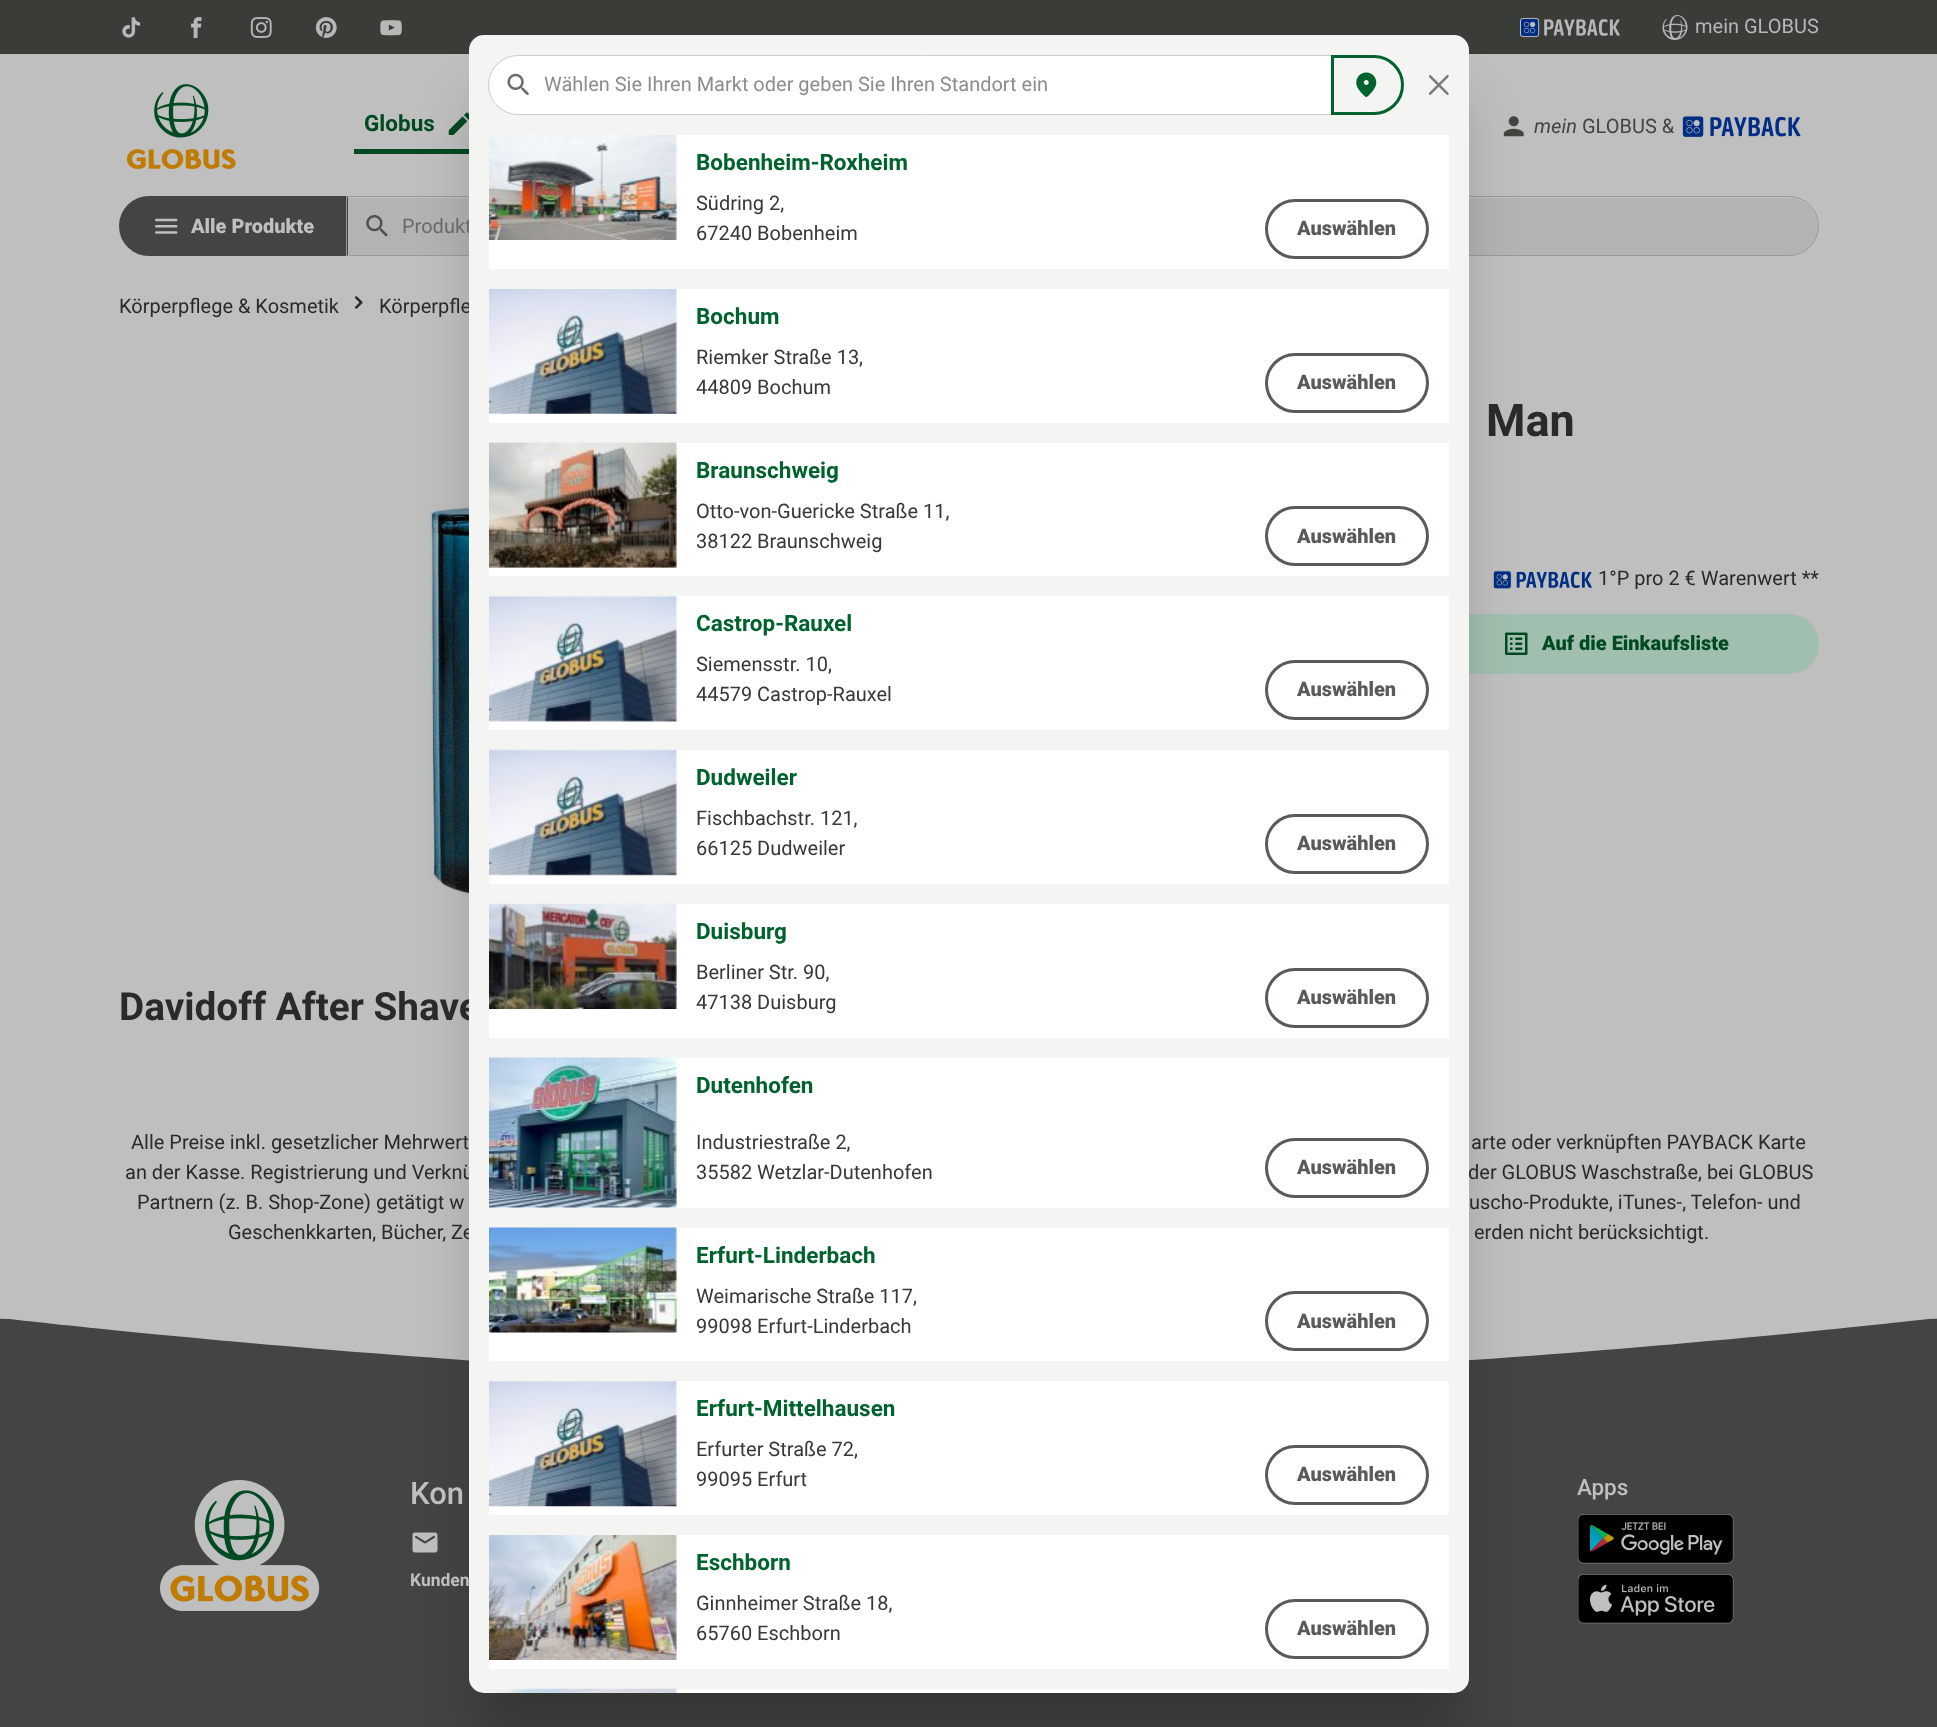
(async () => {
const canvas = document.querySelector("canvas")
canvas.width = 1937
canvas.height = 1727
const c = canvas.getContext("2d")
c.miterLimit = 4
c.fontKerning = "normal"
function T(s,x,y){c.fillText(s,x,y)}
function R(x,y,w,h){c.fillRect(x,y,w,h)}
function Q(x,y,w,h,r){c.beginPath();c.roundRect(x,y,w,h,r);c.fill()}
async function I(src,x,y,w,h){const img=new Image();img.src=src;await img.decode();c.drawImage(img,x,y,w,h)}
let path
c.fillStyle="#bfbfbf"
R(0,0,1937,1727)
c.fillStyle="#3a3c38"
R(0,0,1937,54)
await I("1.png",122,17,19,21)
await I("2.png",191,17,11,21)
await I("3.png",250,17,22,21)
await I("4.png",315,17,22,21)
await I("5.png",380,20,22,16)
await I("6.png",1520,17,100,21)
await I("7.png",1662,15,26,25)
c.font="20px Roboto"
c.fillStyle="#b7b7b6"
T("mein GLOBUS",1695,33)
c.fillStyle="#004a21"
R(354,149,115,5)
await I("23.png",448,112,21,23)
await I("24.png",1503,116,21,21)
c.fillStyle="#b3b3b3"
c.beginPath()
c.roundRect(348,198,1470,57,[0,28.5,28.5,0])
c.fill()
c.fillStyle="#424541"
c.beginPath()
c.roundRect(120.5,197.5,226,57,[28.5,0,0,28.5])
c.fill()
c.strokeStyle="#424541"
c.lineWidth=3
c.stroke()
c.beginPath()
c.roundRect(346.5,196.5,1472,59,[0,29.5,29.5,0])
c.strokeStyle="#9a9b99"
c.lineWidth=1
c.stroke()
await I("29.png",423,375,46,523)
await I("30.png",1493,570,99,19)
c.fillStyle="#a1bfae"
c.beginPath()
c.roundRect(1412.5,615.5,405,57,28.5)
c.fill()
c.strokeStyle="#a1bfae"
c.lineWidth=3
c.stroke()
await I("31.png",1505,632,23,23)
c.fillStyle="#424541"
R(0,1319,1937,408)
c.fillStyle="#9a9b99"
R(0,1318,1937,1)
c.fillStyle="#bfbfbf"
path = new Path2D("M0 1318c0 0 530 62 969 62c439 0 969-62 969-62z")
c.fill(path)
await I("33.png",412,1532,26,21)
c.fillStyle="#00000033"
c.filter="blur(27px)"
c.beginPath()
c.roundRect(476,96,985,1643,8)
c.fill()
c.filter="none"
c.fillStyle="#676b65"
T("Produkt",402,233)
c.fillStyle="#292b29"
T("Körperpfle",379,313)
c.font="bold 38.75px Roboto"
T("Davidoff After Shave",119,1020)
c.font="20px Roboto"
T("an der Kasse. Registrierung und Verknü",125,1179)
T("der GLOBUS Waschstraße, bei GLOBUS",1468,1179)
T("Geschenkkarten, Bücher, Ze",228,1239)
c.font="bold 17.5px Roboto"
c.fillStyle="#bfbfbf"
T("Kunden",410,1586)
c.fillStyle="#f4f4f3"
Q(469,35,1000,1658,15)
c.fillStyle="#fff"
c.beginPath()
c.roundRect(489,56,842,58,[29,0,0,29])
c.fill()
c.beginPath()
c.roundRect(488.5,55.5,844,59,[29.5,0,0,29.5])
c.strokeStyle="#cdcfcc"
c.lineWidth=1
c.stroke()
await I("8.png",507,73,22,22)
c.font="20px Roboto"
c.fillStyle="#898f87"
T("Wählen Sie Ihren Markt oder geben Sie Ihren Standort ein",544,91)
c.beginPath()
c.roundRect(1332.5,56.5,70,57,[0,28.5,28.5,0])
c.strokeStyle="#00622c"
c.lineWidth=3
c.stroke()
await I("9.png",1356,72,21,26)
await I("10.png",1429,75,20,20)
c.fillStyle="#fff"
R(489,135,960,134)
await I("11.png",489,135,188,105)
c.font="bold 22.5px Roboto"
c.fillStyle="#00622c"
T("Bobenheim-Roxheim",696,170)
c.font="20px Roboto"
c.fillStyle="#373936"
T("Südring 2,",696,210)
T("67240 Bobenheim",696,240)
c.beginPath()
c.roundRect(1266.5,200.5,161,57,28.5)
c.strokeStyle="#585c56"
c.stroke()
c.font="900 20px Roboto"
c.fillStyle="#585c56"
T("Auswählen",1297,235)
c.fillStyle="#fff"
R(489,289,960,134)
await I("12.png",489,289,188,125)
c.font="bold 22.5px Roboto"
c.fillStyle="#00622c"
T("Bochum",696,324)
c.font="20px Roboto"
c.fillStyle="#373936"
T("Riemker Straße 13,",696,364)
T("44809 Bochum",696,394)
c.beginPath()
c.roundRect(1266.5,354.5,161,57,28.5)
c.stroke()
c.font="900 20px Roboto"
c.fillStyle="#585c56"
T("Auswählen",1297,389)
c.fillStyle="#fff"
R(489,443,960,133)
await I("13.png",489,442,188,126)
c.font="bold 22.5px Roboto"
c.fillStyle="#00622c"
T("Braunschweig",696,478)
c.font="20px Roboto"
c.fillStyle="#373936"
T("Otto-von-Guericke Straße 11,",696,518)
T("38122 Braunschweig",696,548)
c.beginPath()
c.roundRect(1266.5,507.5,161,57,28.5)
c.stroke()
c.font="900 20px Roboto"
c.fillStyle="#585c56"
T("Auswählen",1297,543)
c.fillStyle="#fff"
R(489,596,960,134)
await I("14.png",489,595,188,127)
c.font="bold 22.5px Roboto"
c.fillStyle="#00622c"
T("Castrop-Rauxel",696,631)
c.font="20px Roboto"
c.fillStyle="#373936"
T("Siemensstr. 10,",696,671)
T("44579 Castrop-Rauxel",696,701)
c.beginPath()
c.roundRect(1266.5,661.5,161,57,28.5)
c.stroke()
c.font="900 20px Roboto"
c.fillStyle="#585c56"
T("Auswählen",1297,696)
c.fillStyle="#fff"
R(489,750,960,134)
await I("15.png",489,749,188,127)
c.font="bold 22.5px Roboto"
c.fillStyle="#00622c"
T("Dudweiler",696,785)
c.font="20px Roboto"
c.fillStyle="#373936"
T("Fischbachstr. 121,",696,825)
T("66125 Dudweiler",696,855)
c.beginPath()
c.roundRect(1266.5,815.5,161,57,28.5)
c.stroke()
c.font="900 20px Roboto"
c.fillStyle="#585c56"
T("Auswählen",1297,850)
c.fillStyle="#fff"
R(489,904,960,134)
await I("16.png",489,903,188,106)
c.font="bold 22.5px Roboto"
c.fillStyle="#00622c"
T("Duisburg",696,939)
c.font="20px Roboto"
c.fillStyle="#373936"
T("Berliner Str. 90,",696,979)
T("47138 Duisburg",696,1009)
c.beginPath()
c.roundRect(1266.5,969.5,161,57,28.5)
c.stroke()
c.font="900 20px Roboto"
c.fillStyle="#585c56"
T("Auswählen",1297,1004)
c.fillStyle="#fff"
R(489,1058,960,150)
await I("17.png",489,1057,188,151)
c.font="bold 22.5px Roboto"
c.fillStyle="#00622c"
T("Dutenhofen",696,1093)
c.font="20px Roboto"
c.fillStyle="#373936"
T("Industriestraße 2,",696,1149)
T("35582 Wetzlar-Dutenhofen",696,1179)
c.beginPath()
c.roundRect(1266.5,1139.5,161,57,28.5)
c.stroke()
c.font="900 20px Roboto"
c.fillStyle="#585c56"
T("Auswählen",1297,1174)
c.fillStyle="#fff"
R(489,1228,960,133)
await I("18.png",489,1227,188,106)
c.font="bold 22.5px Roboto"
c.fillStyle="#00622c"
T("Erfurt-Linderbach",696,1263)
c.font="20px Roboto"
c.fillStyle="#373936"
T("Weimarische Straße 117,",696,1303)
T("99098 Erfurt-Linderbach",696,1333)
c.beginPath()
c.roundRect(1266.5,1292.5,161,57,28.5)
c.stroke()
c.font="900 20px Roboto"
c.fillStyle="#585c56"
T("Auswählen",1297,1328)
c.fillStyle="#fff"
R(489,1381,960,134)
await I("19.png",489,1381,188,126)
c.font="bold 22.5px Roboto"
c.fillStyle="#00622c"
T("Erfurt-Mittelhausen",696,1416)
c.font="20px Roboto"
c.fillStyle="#373936"
T("Erfurter Straße 72,",696,1456)
T("99095 Erfurt",696,1486)
c.beginPath()
c.roundRect(1266.5,1446.5,161,57,28.5)
c.stroke()
c.font="900 20px Roboto"
c.fillStyle="#585c56"
T("Auswählen",1297,1481)
c.fillStyle="#fff"
R(489,1535,960,134)
await I("20.png",489,1535,188,125)
c.font="bold 22.5px Roboto"
c.fillStyle="#00622c"
T("Eschborn",696,1570)
c.font="20px Roboto"
c.fillStyle="#373936"
T("Ginnheimer Straße 18,",696,1610)
T("65760 Eschborn",696,1640)
c.beginPath()
c.roundRect(1266.5,1600.5,161,57,28.5)
c.stroke()
c.font="900 20px Roboto"
c.fillStyle="#585c56"
T("Auswählen",1297,1635)
c.fillStyle="#fff"
R(675,1689,774,4)
await I("21.png",489,1688,188,5)
await I("22.png",126,84,110,85)
c.font="bold 22.5px Roboto"
c.fillStyle="#004a21"
T("Globus",364,131)
c.font="italic 20px Roboto"
c.fillStyle="#424541"
T("mein",1534,133)
c.font="20px Roboto"
T("GLOBUS &",1582,133)
await I("25.png",1682,115,119,23)
await I("26.png",155,218,23,16)
c.font="900 20px Roboto"
c.fillStyle="#bfbfbf"
T("Alle Produkte",191,233)
await I("27.png",366,215,22,22)
c.font="20px Roboto"
c.fillStyle="#292b29"
T("Körperpflege & Kosmetik",119,313)
await I("28.png",355,296,8,13)
c.font="bold 45px Roboto"
T("Man",1486,436)
c.font="20px Roboto"
T("1°P pro 2 € Warenwert **",1598,585)
c.font="900 20px Roboto"
c.fillStyle="#004a21"
T("Auf die Einkaufsliste",1542,650)
c.font="20px Roboto"
c.fillStyle="#292b29"
T("Alle Preise inkl. gesetzlicher Mehrwert",131,1149)
T("arte oder verknüpften PAYBACK Karte",1471,1149)
T("Partnern (z. B. Shop-Zone) getätigt w",137,1209)
T("uscho-Produkte, iTunes-, Telefon- und",1469,1209)
T("erden nicht berücksichtigt.",1474,1239)
await I("32.png",160,1480,160,131)
c.font="500 31px Roboto"
c.fillStyle="#bfbfbf"
T("Kon",410,1504)
c.font="500 22.5px Roboto"
T("Apps",1577,1495)
await I("34.png",1578,1514,156,50)
await I("35.png",1578,1574,156,50)
})()
